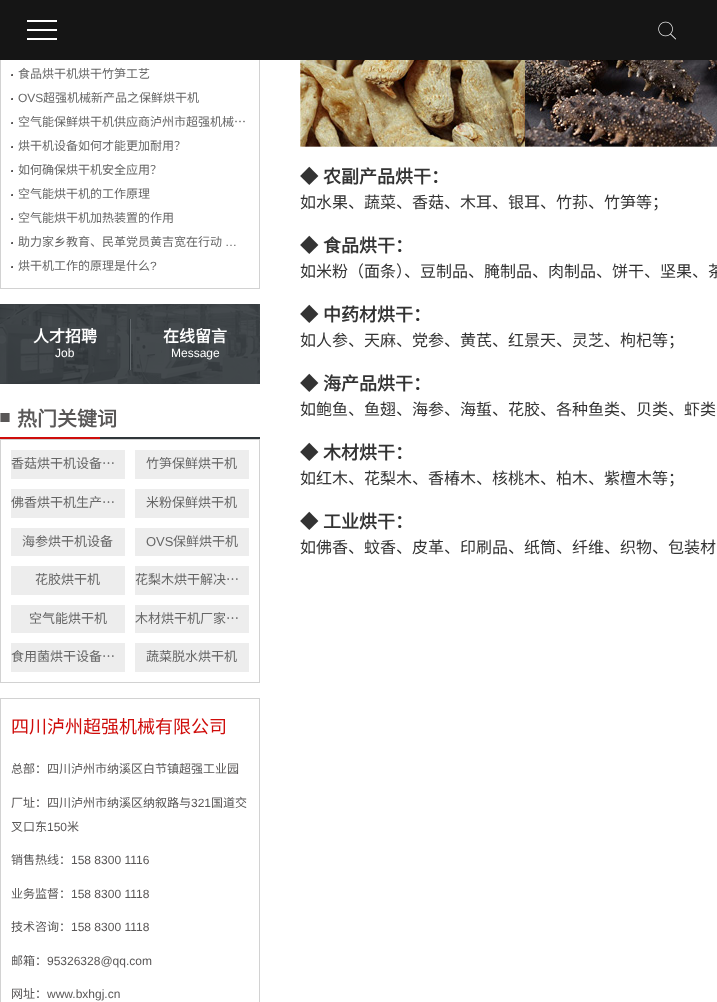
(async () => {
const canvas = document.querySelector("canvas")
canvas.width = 717
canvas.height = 1002
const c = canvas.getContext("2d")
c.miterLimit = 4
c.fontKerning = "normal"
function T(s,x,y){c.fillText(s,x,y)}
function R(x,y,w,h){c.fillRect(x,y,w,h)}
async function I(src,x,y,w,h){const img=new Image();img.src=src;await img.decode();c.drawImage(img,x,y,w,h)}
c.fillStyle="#fff"
R(0,0,717,1002)
c.strokeStyle="#d2d2d2"
c.strokeRect(.5,27.5,259,261)
c.fillStyle="#151515"
R(0,0,717,60)
c.fillStyle="#fff"
R(27,20,30,2)
R(27,29,30,2)
R(27,38,30,2)
await I("1.png",658,21,18,19)
await I("2.png",11,74,2,2)
c.font="12px Noto Sans CJK SC"
c.fillStyle="#666"
T("食品烘干机烘干竹笋工艺",18,78)
await I("2.png",11,98,2,2)
c.font="12px Liberation Sans"
T("OVS",18,102)
c.font="12px Noto Sans CJK SC"
T("超强机械新产品之保鲜烘干机",43,102)
await I("2.png",11,122,2,2)
T("空气能保鲜烘干机供应商泸州市超强机械…",18,126)
await I("2.png",11,146,2,2)
T("烘干机设备如何才能更加耐用？",18,150)
await I("2.png",11,170,2,2)
T("如何确保烘干机安全应用？",18,174)
await I("2.png",11,194,2,2)
T("空气能烘干机的工作原理",18,198)
await I("2.png",11,218,2,2)
T("空气能烘干机加热装置的作用",18,222)
await I("2.png",11,242,2,2)
T("助力家乡教育、民革党员黄吉宽在行动",18,246)
c.font="12px Liberation Sans"
T("…",225,246)
await I("2.png",11,266,2,2)
c.font="12px Noto Sans CJK SC"
T("烘干机工作的原理是什么",18,270)
c.font="12px Liberation Sans"
T("?",150,270)
await I("3.png",0,304,260,80)
c.font="bold 16px Noto Sans CJK SC"
c.fillStyle="#fff"
T("人才招聘",33,342)
c.font="12px Liberation Sans"
T("Job",55,357)
c.font="bold 16px Noto Sans CJK SC"
T("在线留言",163,342)
c.font="12px Liberation Sans"
T("Message",171,357)
await I("4.png",0,413,260,26)
c.font="bold 20px Noto Sans CJK SC"
c.fillStyle="#595757"
T("热门关键词",17,426)
c.strokeRect(.5,439.5,259,243)
c.fillStyle="#ededed"
R(11,450,114,29)
c.font="13px Noto Sans CJK SC"
c.fillStyle="#666"
T("香菇烘干机设备…",11,468)
c.fillStyle="#ededed"
R(135,450,114,29)
c.fillStyle="#666"
T("竹笋保鲜烘干机",146,468)
c.fillStyle="#ededed"
R(11,489,114,29)
c.fillStyle="#666"
T("佛香烘干机生产…",11,507)
c.fillStyle="#ededed"
R(135,489,114,29)
c.fillStyle="#666"
T("米粉保鲜烘干机",146,507)
c.fillStyle="#ededed"
R(11,528,114,28)
c.fillStyle="#666"
T("海参烘干机设备",22,546)
c.fillStyle="#ededed"
R(135,528,114,28)
c.font="13px Liberation Sans"
c.fillStyle="#666"
T("OVS",146,546)
c.font="13px Noto Sans CJK SC"
T("保鲜烘干机",173,546)
c.fillStyle="#ededed"
R(11,566,114,29)
c.fillStyle="#666"
T("花胶烘干机",35,584)
c.fillStyle="#ededed"
R(135,566,114,29)
c.fillStyle="#666"
T("花梨木烘干解决…",135,584)
c.fillStyle="#ededed"
R(11,605,114,28)
c.fillStyle="#666"
T("空气能烘干机",29,623)
c.fillStyle="#ededed"
R(135,605,114,28)
c.fillStyle="#666"
T("木材烘干机厂家…",135,623)
c.fillStyle="#ededed"
R(11,643,114,29)
c.fillStyle="#666"
T("食用菌烘干设备…",11,661)
c.fillStyle="#ededed"
R(135,643,114,29)
c.fillStyle="#666"
T("蔬菜脱水烘干机",146,661)
c.strokeRect(.5,698.5,259,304)
c.font="18px Noto Sans CJK SC"
c.fillStyle="#cf0c0a"
T("四川泸州超强机械有限公司",11,733)
c.font="12px Noto Sans CJK SC"
c.fillStyle="#595757"
T("总部：四川泸州市纳溪区白节镇超强工业园",11,773)
T("厂址：四川泸州市纳溪区纳叙路与",11,807)
c.font="12px Liberation Sans"
T("321",191,807)
c.font="12px Noto Sans CJK SC"
T("国道交",211,807)
T("叉口东",11,831)
c.font="12px Liberation Sans"
T("150",47,831)
c.font="12px Noto Sans CJK SC"
T("米",67,831)
T("销售热线：",11,864)
c.font="12px Liberation Sans"
T("158 8300 1116",71,864)
c.font="12px Noto Sans CJK SC"
T("业务监督：",11,898)
c.font="12px Liberation Sans"
T("158 8300 1118",71,898)
c.font="12px Noto Sans CJK SC"
T("技术咨询：",11,931)
c.font="12px Liberation Sans"
T("158 8300 1118",71,931)
c.font="12px Noto Sans CJK SC"
T("邮箱：",11,965)
c.font="12px Liberation Sans"
T("95326328@qq.com",47,965)
c.font="12px Noto Sans CJK SC"
T("网址：",11,998)
c.font="12px Liberation Sans"
T("www.bxhgj.cn",47,998)
await I("5.png",300,60,417,87)
c.wordSpacing="1px"
c.font="bold 18px Noto Sans CJK SC"
c.fillStyle="#333"
T("◆ 农副产品烘干：",300,183)
c.wordSpacing="0px"
c.font="16px Noto Sans CJK SC"
T("如水果、蔬菜、香菇、木耳、银耳、竹荪、竹笋等；",300,208)
c.font="bold 18px Noto Sans CJK SC"
T("◆",300,252)
T("食品烘干：",323,252)
c.font="16px Noto Sans CJK SC"
T("如米粉（面条）、豆制品、腌制品、肉制品、饼干、坚果、茶",300,277)
c.font="bold 18px Noto Sans CJK SC"
T("◆",300,321)
T("中药材烘干：",323,321)
c.font="16px Noto Sans CJK SC"
T("如人参、天麻、党参、黄芪、红景天、灵芝、枸杞等；",300,346)
c.font="bold 18px Noto Sans CJK SC"
T("◆",300,390)
T("海产品烘干：",323,390)
c.font="16px Noto Sans CJK SC"
T("如鲍鱼、鱼翅、海参、海蜇、花胶、各种鱼类、贝类、虾类",300,415)
c.font="bold 18px Noto Sans CJK SC"
T("◆",300,459)
T("木材烘干：",323,459)
c.font="16px Noto Sans CJK SC"
T("如红木、花梨木、香椿木、核桃木、柏木、紫檀木等；",300,484)
c.font="bold 18px Noto Sans CJK SC"
T("◆",300,528)
T("工业烘干：",323,528)
c.font="16px Noto Sans CJK SC"
T("如佛香、蚊香、皮革、印刷品、纸筒、纤维、织物、包装材",300,553)
})()
